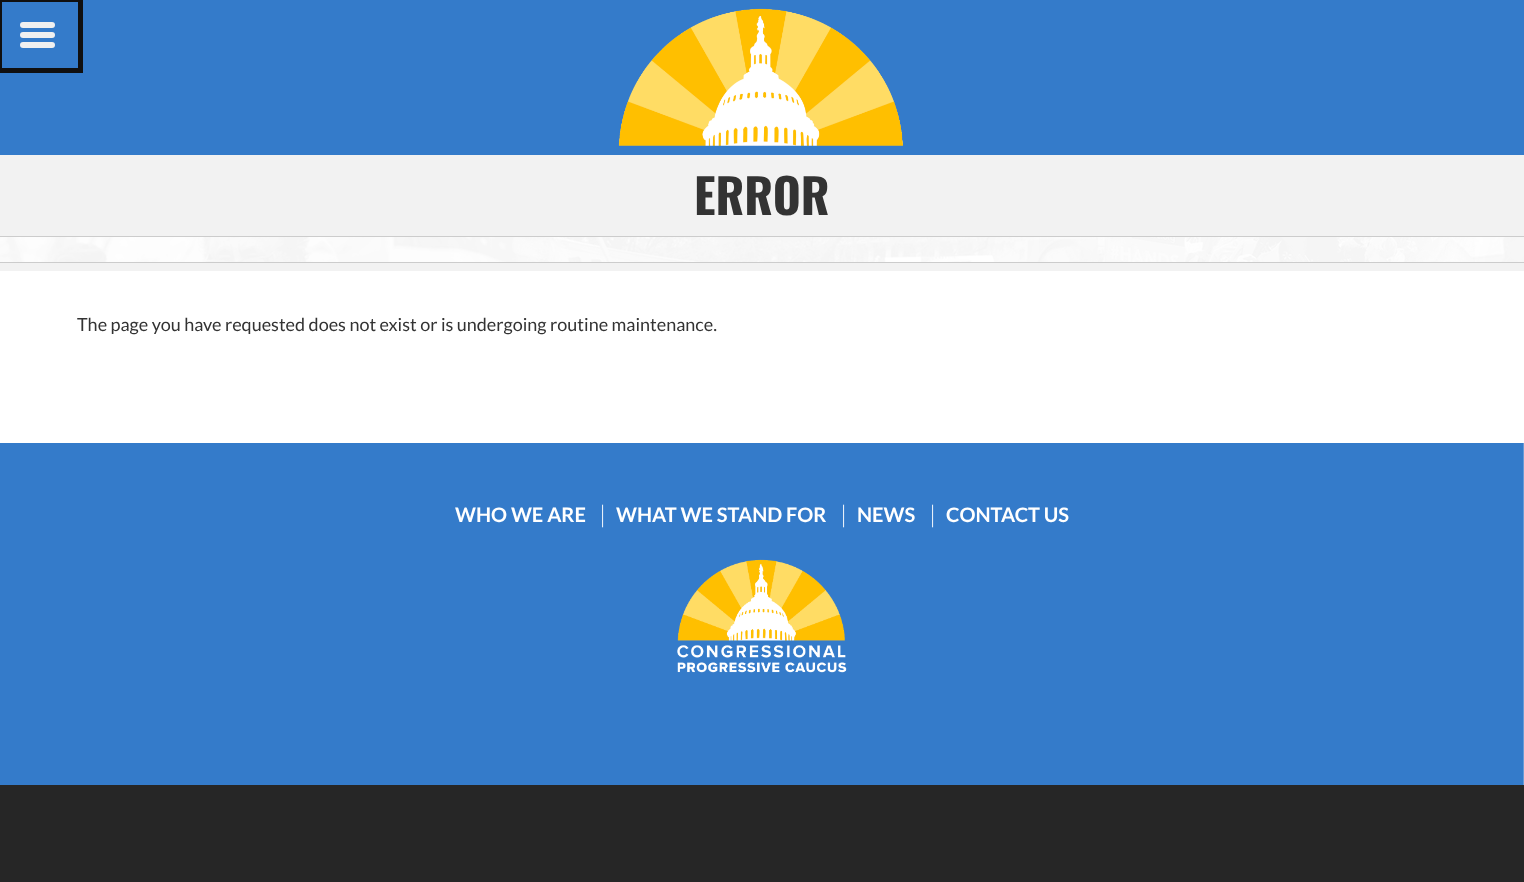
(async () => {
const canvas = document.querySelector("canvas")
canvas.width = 1524
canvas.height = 882
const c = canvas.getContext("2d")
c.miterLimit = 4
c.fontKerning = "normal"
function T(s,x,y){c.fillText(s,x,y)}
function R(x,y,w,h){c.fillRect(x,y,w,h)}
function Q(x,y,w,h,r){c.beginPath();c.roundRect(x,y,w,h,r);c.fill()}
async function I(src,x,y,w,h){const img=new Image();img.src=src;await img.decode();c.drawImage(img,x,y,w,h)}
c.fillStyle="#262626"
R(0,0,1524,882)
c.fillStyle="#347bca"
R(0,0,1524,155)
c.fillStyle="#f0f0f0"
Q(20,22,35,6,3)
Q(20,32,35,6,3)
Q(20,42,35,6,3)
c.strokeStyle="#101010"
c.lineWidth=5
c.strokeRect(-.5,-.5,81,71)
await I("1.png",618,8,285,138)
c.fillStyle="#fff"
R(0,271,1524,172)
c.fillStyle="#f2f2f2"
R(0,155,1524,116)
c.font="bold 48px Oswald"
c.fillStyle="#333"
T("ERROR",694,215)
c.fillStyle="#fff"
R(0,237,1524,25)
await I("2.png",0,237,1524,25)
c.fillStyle="#ccc"
R(0,236,1524,1)
R(0,262,1524,1)
c.font="18px Lato"
c.fillStyle="#333"
T("The page you have requested does not exist or is undergoing routine maintenance.",77,331)
c.fillStyle="#347bca"
R(0,443,1523,342)
c.fillStyle="#679cd7"
R(1523,443,1,342)
c.font="bold 20px Lato"
c.fillStyle="#fff"
T("WHO WE ARE",455,522)
c.font="300 24px Lato"
T("|",599,523)
c.font="bold 20px Lato"
T("WHAT WE STAND FOR",616,522)
c.font="300 24px Lato"
T("|",840,523)
c.font="bold 20px Lato"
T("NEWS",857,522)
c.font="300 24px Lato"
T("|",929,523)
c.font="bold 20px Lato"
T("CONTACT US",946,522)
await I("3.png",677,559,170,114)
})()
